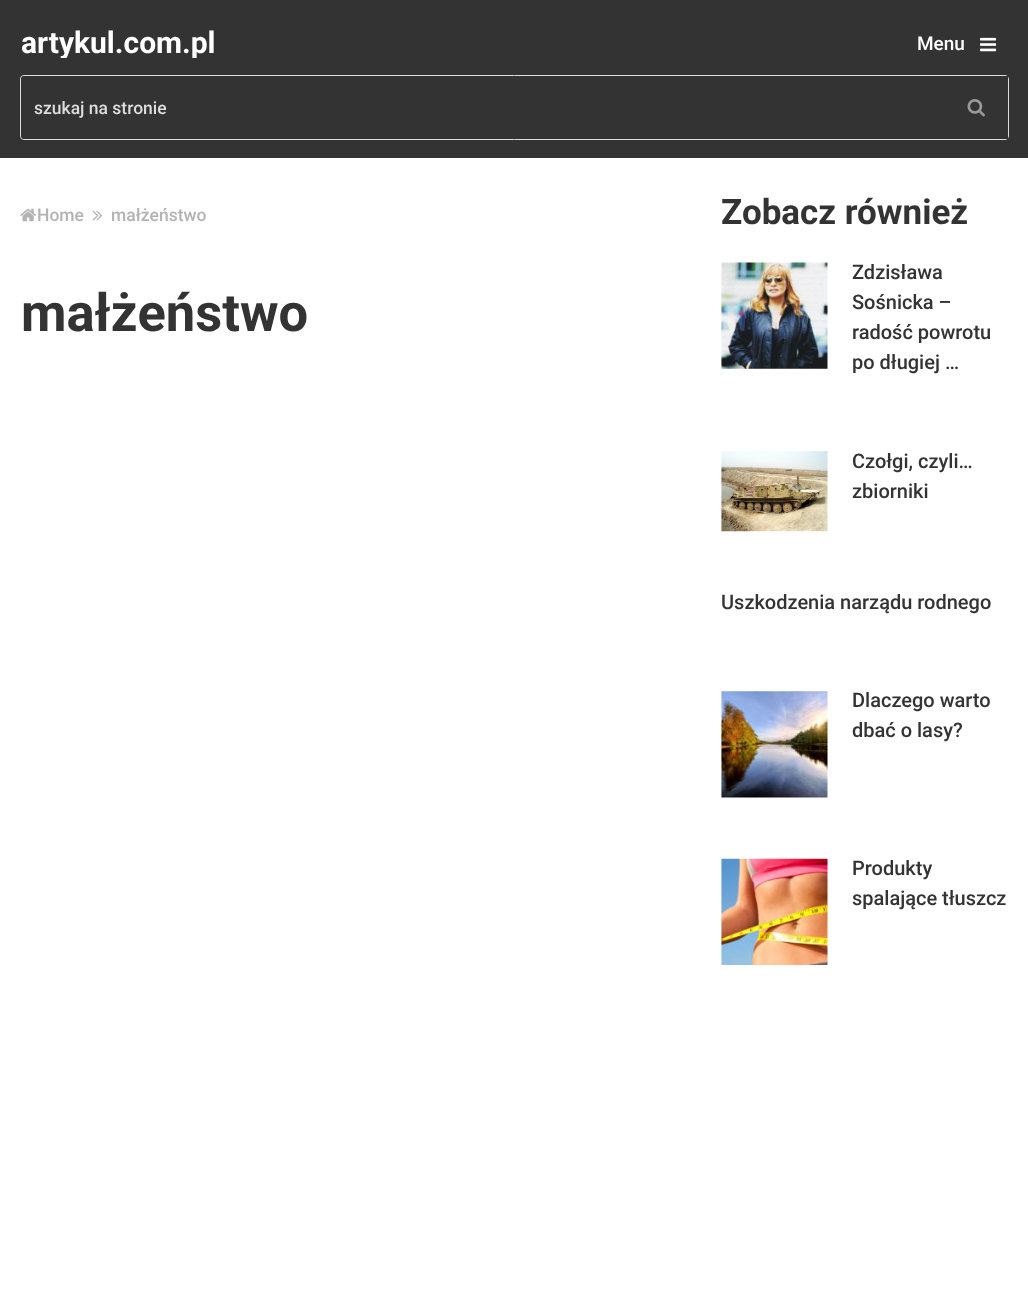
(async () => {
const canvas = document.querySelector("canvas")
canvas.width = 1028
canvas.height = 1290
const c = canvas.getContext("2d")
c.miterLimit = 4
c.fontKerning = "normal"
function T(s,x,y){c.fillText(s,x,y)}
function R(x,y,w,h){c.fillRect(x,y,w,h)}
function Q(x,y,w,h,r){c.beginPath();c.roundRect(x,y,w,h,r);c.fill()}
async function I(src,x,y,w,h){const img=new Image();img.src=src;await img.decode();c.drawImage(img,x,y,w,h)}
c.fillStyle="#fff"
R(0,0,1028,1290)
c.fillStyle="#333"
R(0,0,1028,158)
c.save()
c.beginPath()
c.rect(20,28,195,30)
c.clip()
c.font="bold 30px Roboto"
c.fillStyle="#fff"
T("artykul.com.pl",21,53)
c.restore()
c.font="500 19px Roboto"
c.fillStyle="#fff"
T("Menu",917,50)
await I("1.png",980,37,17,15)
c.beginPath()
c.roundRect(20.5,75.5,988,64,3.5)
c.strokeStyle="#ddd"
c.stroke()
c.fillStyle="#333"
Q(21,76,987,63,4)
c.font="500 17.5px Roboto"
c.fillStyle="#ddd"
T("szukaj na stronie",34,114)
c.fillStyle="#333"
R(1005,76,3,63)
await I("2.png",967,99,18,18)
await I("3.png",20,208,16,14)
c.fillStyle="#b3b3b3"
T("Home",37,221)
await I("4.png",92,210,10,11)
T("małżeństwo",111,221)
c.font="bold 52.5px Roboto"
c.fillStyle="#333"
T("małżeństwo",21,331)
c.font="bold 35px Roboto"
T("Zobacz również",721,224)
await I("5.png",721,262,107,107)
c.font="500 20px Roboto"
T("Zdzisława",852,279)
T("Sośnicka –",852,309)
T("radość powrotu",852,339)
T("po długiej …",852,369)
await I("6.png",721,451,107,81)
T("Czołgi, czyli…",852,468)
T("zbiorniki",852,498)
T("Uszkodzenia narządu rodnego",721,609)
await I("7.png",721,691,107,107)
T("Dlaczego warto",852,707)
T("dbać o lasy?",852,737)
await I("8.png",721,858,107,107)
T("Produkty",852,875)
T("spalające tłuszcz",852,905)
})()
